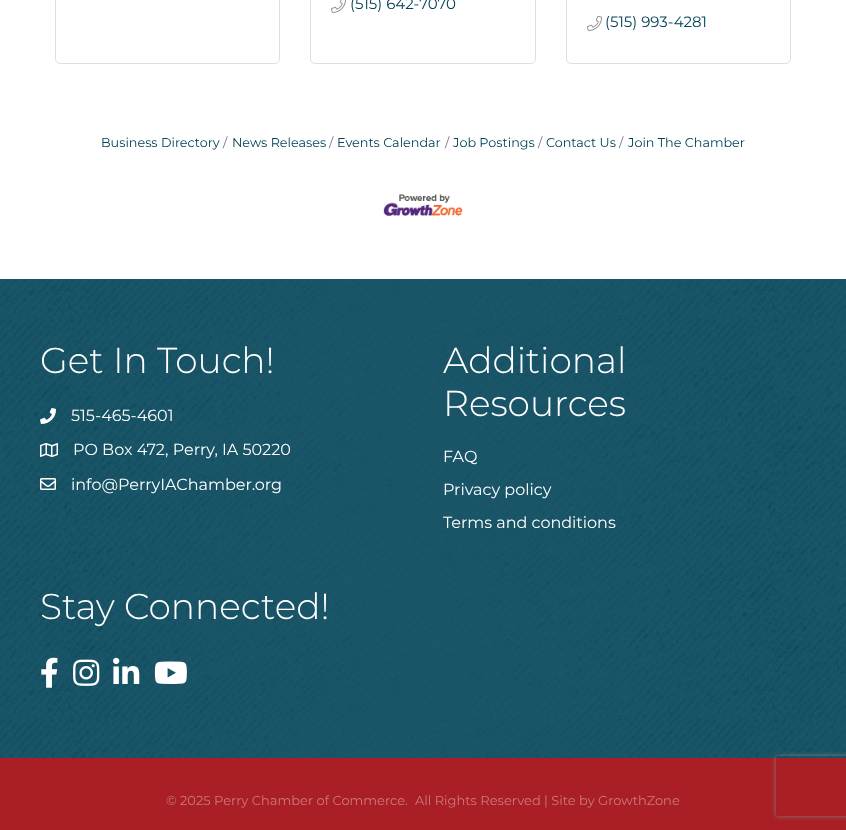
(async () => {
const canvas = document.querySelector("canvas")
canvas.width = 846
canvas.height = 830
const c = canvas.getContext("2d")
c.miterLimit = 4
c.fontKerning = "normal"
function T(s,x,y){c.fillText(s,x,y)}
function R(x,y,w,h){c.fillRect(x,y,w,h)}
async function I(src,x,y,w,h){const img=new Image();img.src=src;await img.decode();c.drawImage(img,x,y,w,h)}
let path
c.fillStyle="#fff"
R(0,0,846,830)
c.beginPath()
c.roundRect(55.5,-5.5,224,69,4.5)
c.strokeStyle="#dfdfdf"
c.stroke()
c.beginPath()
c.roundRect(310.5,-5.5,225,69,4.5)
c.stroke()
await I("1.png",331,0,15,13)
c.font="15px Montserrat"
c.fillStyle="#024358"
T("(515) 642-7070",350,9)
c.beginPath()
c.roundRect(566.5,-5.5,224,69,4.5)
c.stroke()
await I("2.png",587,15,15,16)
T("(515) 993-4281",605,27)
c.font="12.75px Montserrat"
T("Business Directory",101,147)
c.fillStyle="#6c757d"
T("/",223,147)
c.fillStyle="#024358"
T("News Releases",232,147)
c.fillStyle="#6c757d"
T("/",329,147)
c.fillStyle="#024358"
T("Events Calendar",337,147)
c.fillStyle="#6c757d"
T("/",445,147)
c.fillStyle="#024358"
T("Job Postings",453,147)
c.fillStyle="#6c757d"
T("/",538,147)
c.fillStyle="#024358"
T("Contact Us",546,147)
c.fillStyle="#6c757d"
T("/",619,147)
c.fillStyle="#024358"
T("Join The Chamber",628,147)
await I("3.png",383,194,80,22)
await I("4.png",0,279,846,479)
c.font="300 36px Montserrat"
c.fillStyle="#fff"
T("Get In Touch!",40,373)
await I("5.png",40,408,16,16)
c.font="16px Montserrat"
T("515-465-4601",71,421)
await I("6.png",40,443,18,14)
T("PO Box 472, Perry, IA 50220",73,455)
await I("7.png",40,478,16,12)
T("info@PerryIAChamber.org",71,490)
c.font="300 36px Montserrat"
T("Additional",443,373)
T("Resources",443,416)
c.font="16px Montserrat"
T("FAQ",443,462)
T("Privacy policy",443,495)
T("Terms and conditions",443,528)
c.font="300 36px Montserrat"
T("Stay Connected!",40,619)
await I("8.png",41,657,17,31)
await I("9.png",73,659,27,27)
await I("10.png",113,657,27,27)
await I("11.png",154,661,33,23)
c.fillStyle="#aa1f25"
R(0,758,846,72)
c.font="13px Montserrat"
c.fillStyle="#cc797c"
T("© 2025 Perry Chamber of Commerce.",166,805)
T("All Rights Reserved | Site by GrowthZone",415,805)
c.save()
path = new Path2D("M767 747h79v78h-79zm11 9h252c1 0 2 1 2 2v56c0 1-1 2-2 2h-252c-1 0-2-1-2-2v-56c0-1 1-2 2-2z")
c.clip(path,"evenodd")
c.fillStyle="#808080"
c.filter="blur(2.5px)"
c.beginPath()
c.roundRect(776,756,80,60,2)
c.fill()
c.filter="none"
c.restore()
})()
